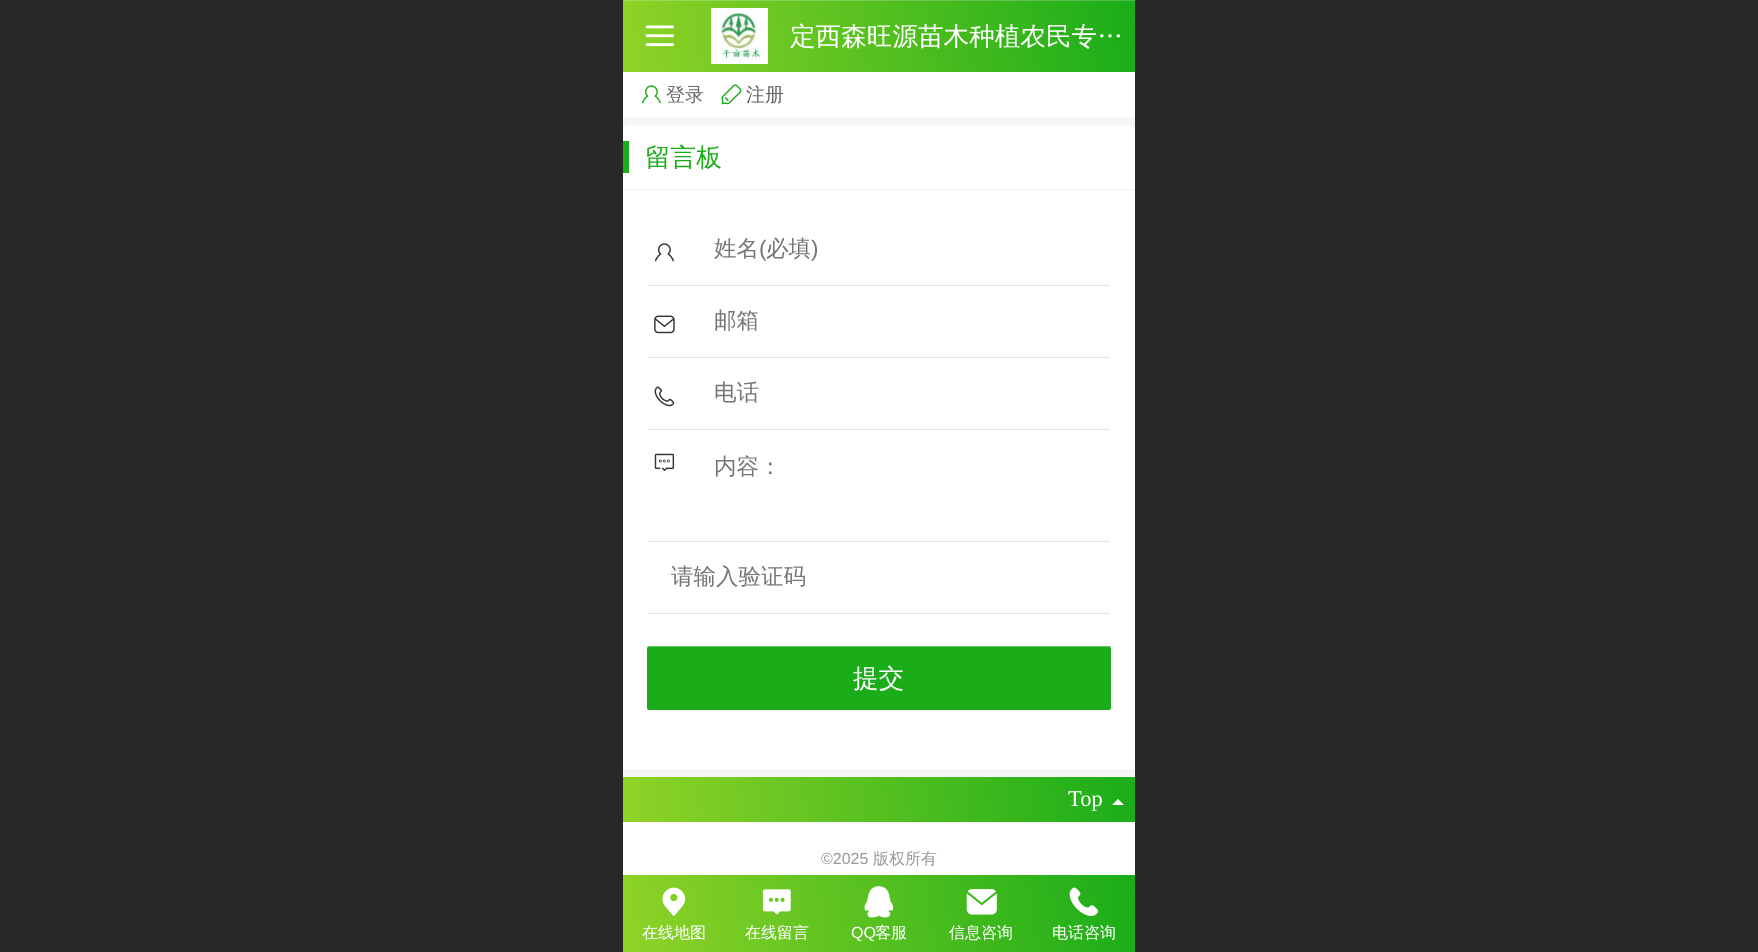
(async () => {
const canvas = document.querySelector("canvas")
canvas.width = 1758
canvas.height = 952
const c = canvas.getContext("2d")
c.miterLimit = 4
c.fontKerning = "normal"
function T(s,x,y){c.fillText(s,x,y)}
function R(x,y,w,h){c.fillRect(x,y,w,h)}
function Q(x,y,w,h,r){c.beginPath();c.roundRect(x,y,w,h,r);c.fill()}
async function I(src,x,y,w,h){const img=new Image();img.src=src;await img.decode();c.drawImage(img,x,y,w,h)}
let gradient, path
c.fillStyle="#fff"
R(0,0,1758,952)
c.fillStyle="#282828"
R(0,0,623,952)
gradient = c.createLinearGradient(623,72,1135,0)
gradient.addColorStop(0,"#90d327")
gradient.addColorStop(1,"#1aad19")
c.fillStyle = gradient
R(623,1,512,71)
await I("1.png",645,25,29,22)
gradient = c.createLinearGradient(623,72,1135,0)
gradient.addColorStop(0,"#a6dc52")
gradient.addColorStop(1,"#48bd47")
c.fillStyle = gradient
R(623,0,512,1)
await I("2.png",711,8,57,56)
c.font="500 25.6px WenQuanYi Zen Hei"
c.fillStyle="#fff"
T("定西森旺源苗木种植农民专…",790,45)
await I("3.png",642,85,19,19)
c.font="500 19px WenQuanYi Zen Hei"
c.fillStyle="#666"
T("登录",666,101)
await I("4.png",721,84,21,21)
T("注册",746,101)
c.fillStyle="#f5f5f5"
R(623,117,512,660)
c.fillStyle="#fff"
c.beginPath()
c.roundRect(623,125,512,65,[6,6,0,0])
c.fill()
c.fillStyle="#f0f0f0"
R(623,189,512,1)
c.fillStyle="#1aad19"
R(623,141,6,32)
c.font="500 25.6px WenQuanYi Zen Hei"
T("留言板",645,166)
c.fillStyle="#fff"
R(623,190,512,579)
await I("5.png",655,243,19,19)
c.fillStyle="#e3e3e3"
R(648,285,462,1)
c.font="500 22.5px WenQuanYi Zen Hei"
c.fillStyle="#757575"
T("姓名",714,256)
c.font="22.5px Liberation Sans"
T("(",759,256)
c.font="500 22.5px WenQuanYi Zen Hei"
T("必填",766,256)
c.font="22.5px Liberation Sans"
T(")",811,256)
await I("6.png",654,315,21,19)
c.fillStyle="#e3e3e3"
R(648,357,462,1)
c.font="500 22.5px WenQuanYi Zen Hei"
c.fillStyle="#757575"
T("邮箱",714,328)
await I("7.png",654,386,21,21)
c.fillStyle="#e3e3e3"
R(648,429,462,1)
c.fillStyle="#757575"
T("电话",714,400)
await I("8.png",654,453,21,18)
c.fillStyle="#e3e3e3"
R(648,541,462,1)
c.fillStyle="#757575"
T("内容：",714,474)
c.fillStyle="#e3e3e3"
R(648,613,462,1)
c.fillStyle="#757575"
T("请输入验证码",671,584)
c.fillStyle="#1aad19"
Q(647,646,464,64,2)
c.fillStyle="#ffffff4d"
path = new Path2D("M649 647h460c1 0 2 1 2 2v-2l-2-1h-460c-2 0-2 2-2 3c0-1 1-2 2-2z")
c.fill(path)
c.font="500 25.6px WenQuanYi Zen Hei"
c.fillStyle="#fff"
T("提交",853,687)
gradient = c.createLinearGradient(623,822,1135,777)
gradient.addColorStop(0,"#90d327")
gradient.addColorStop(1,"#1aad19")
c.fillStyle = gradient
R(623,777,512,45)
c.font="22.5px Liberation Serif"
c.fillStyle="#fff"
T("Top",1068,806)
path = new Path2D("M1124 805h-12l6-6z")
c.fill(path)
c.font="16px Liberation Sans"
c.fillStyle="#999"
T("©2025",821,864)
c.font="500 16px WenQuanYi Zen Hei"
T("版权所有",873,864)
gradient = c.createLinearGradient(623,952,1135,875)
gradient.addColorStop(0,"#90d327")
gradient.addColorStop(1,"#1aad19")
c.fillStyle = gradient
R(623,875,512,77)
await I("9.png",662,887,24,29)
c.fillStyle="#fff"
T("在线地图",642,938)
await I("10.png",762,889,29,26)
T("在线留言",745,938)
await I("11.png",864,886,30,32)
c.font="16px Liberation Sans"
T("QQ",851,938)
c.font="500 16px WenQuanYi Zen Hei"
T("客服",875,938)
await I("12.png",966,889,31,26)
T("信息咨询",949,938)
await I("13.png",1069,887,29,29)
T("电话咨询",1052,938)
c.fillStyle="#282828"
R(1135,0,623,952)
})()
